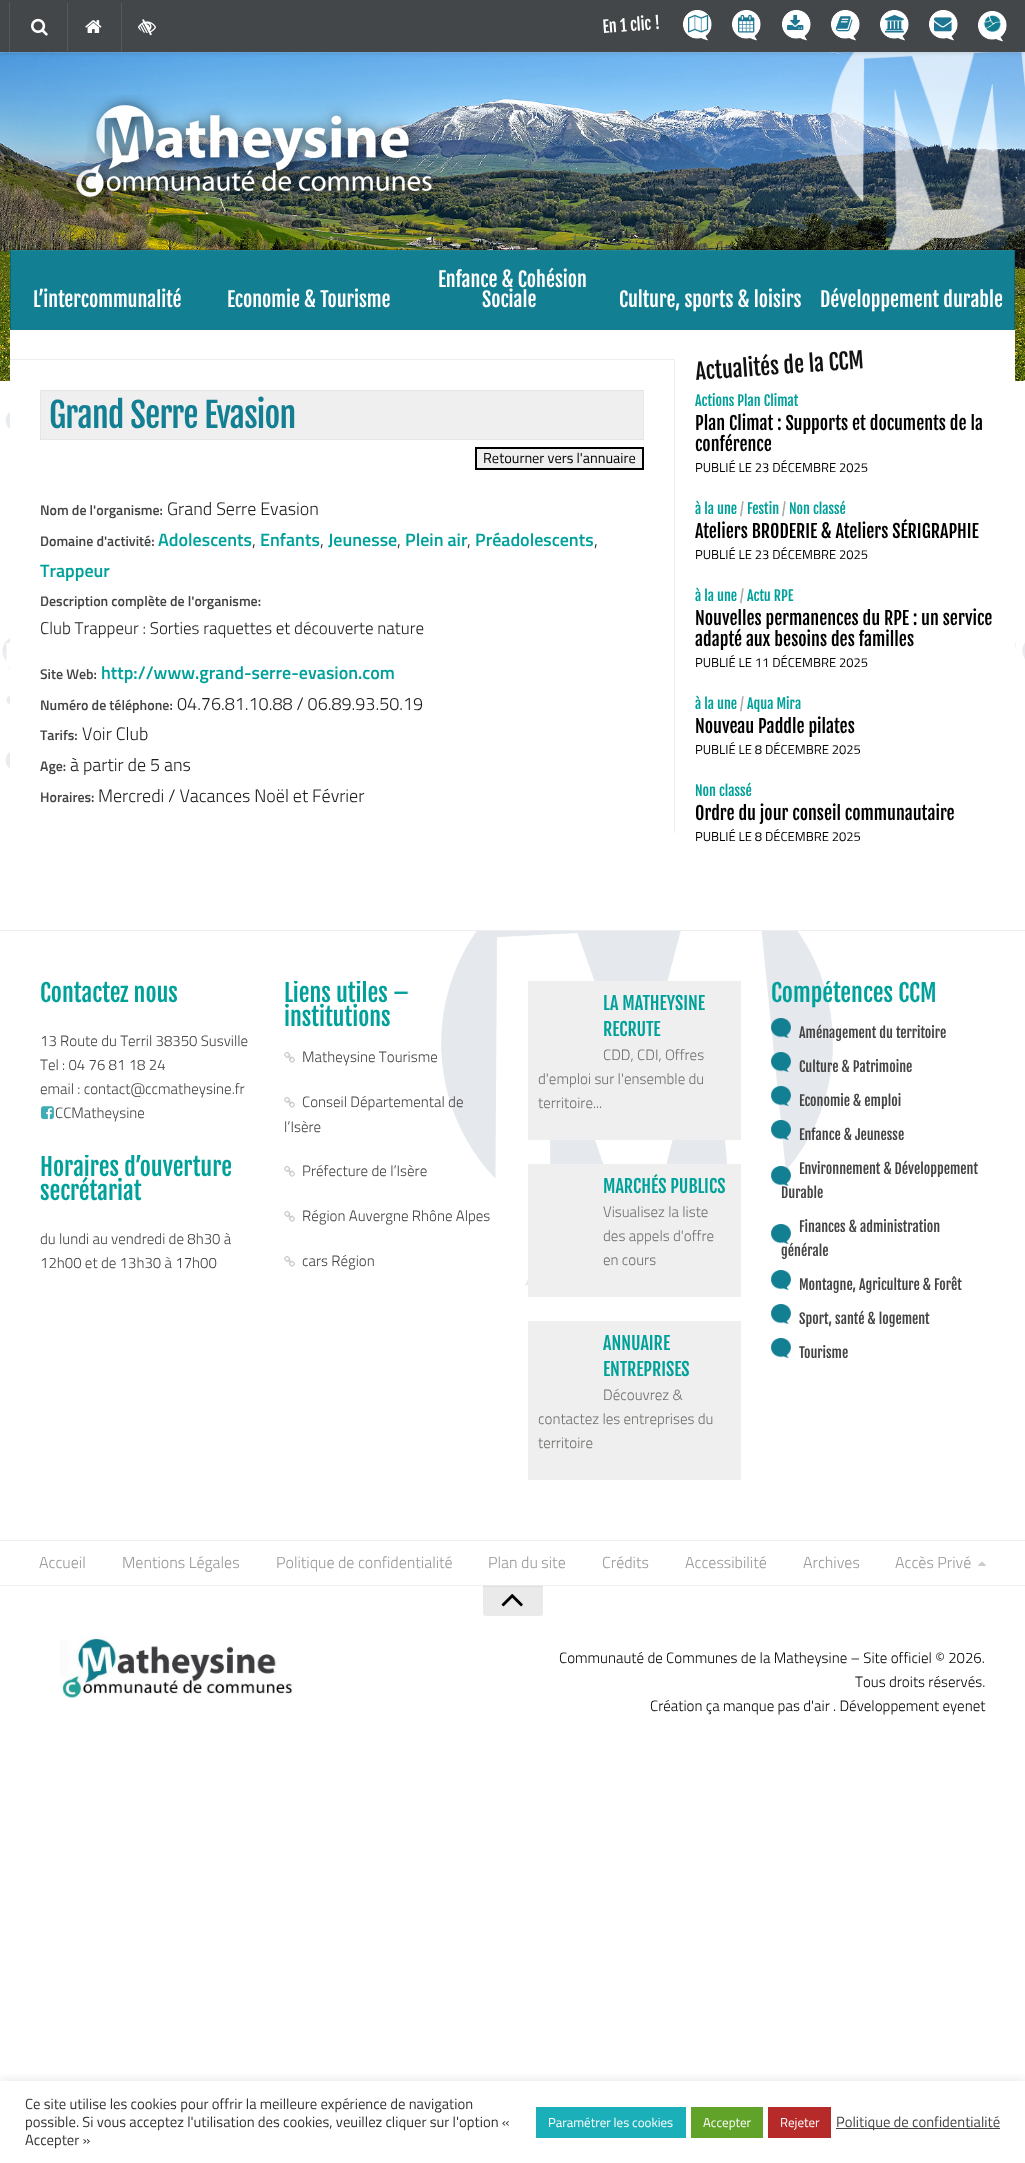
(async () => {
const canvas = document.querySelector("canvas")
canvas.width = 1025
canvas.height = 2163
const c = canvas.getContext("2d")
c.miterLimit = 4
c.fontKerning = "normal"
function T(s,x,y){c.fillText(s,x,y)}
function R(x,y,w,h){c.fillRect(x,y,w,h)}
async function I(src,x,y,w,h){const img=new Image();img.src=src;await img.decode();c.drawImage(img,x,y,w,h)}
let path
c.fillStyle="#fff"
R(0,0,1025,2163)
await I("1.png",0,52,1025,329)
await I("14.png",830,52,195,198)
c.fillStyle="#ffffff26"
R(0,52,1025,1)
c.fillStyle="#00000033"
c.filter="blur(2.5px)"
c.beginPath()
c.rect(0,0,1025,52)
c.fill()
c.filter="none"
c.fillStyle="#444749"
R(0,0,1025,52)
c.fillStyle="#57595b"
R(9,2,1,50)
await I("2.png",31,18,17,18)
R(67,3,1,48)
await I("3.png",85,20,17,13)
R(121,3,1,48)
await I("4.png",138,19,18,17)
c.font="16px Fjalla One"
c.fillStyle="#fff"
c.save()
c.translate(603,33)
c.rotate(-4 * Math.PI / 180)
c.fillText("En 1 clic !",0,0)
c.restore()
await I("5.png",683,10,29,31)
await I("6.png",688,14,21,19)
await I("5.png",732,10,29,31)
await I("7.png",738,14,17,19)
await I("5.png",782,10,29,31)
await I("8.png",787,14,17,16)
await I("5.png",831,10,29,31)
await I("9.png",836,16,17,16)
await I("5.png",880,10,29,31)
await I("10.png",885,15,19,18)
await I("5.png",929,10,29,31)
await I("11.png",934,17,18,15)
await I("12.png",978,11,29,31)
await I("13.png",984,15,17,17)
await I("15.png",70,95,370,113)
c.fillStyle="#00000033"
R(10,249,1005,1)
c.fillStyle="#137f92"
R(11,250,1003,80)
c.fillStyle="#0f6675"
R(1014,250,1,80)
R(10,250,1,80)
c.fillStyle="#ffffff0d"
R(10,250,1005,1)
c.font="20px Fjalla One"
c.fillStyle="#fff"
T("L’intercommunalité",33,307)
T("Economie & Tourisme",227,307)
T("Enfance & Cohésion",438,287)
T("Sociale",482,307)
T("Culture, sports & loisirs",619,307)
T("Développement durable",820,307)
await I("16.png",2,412,1023,440)
R(10,330,1005,522)
c.fillStyle="#eee"
R(10,359,665,1)
R(674,360,1,473)
c.fillStyle="#efefef"
R(40,390,604,50)
path = new Path2D("M40 390.5h604")
c.strokeStyle="#ddd"
c.setLineDash([1,1])
c.stroke(path)
path = new Path2D("M643.5 390v50")
c.stroke(path)
path = new Path2D("M40 439.5h604")
c.stroke(path)
path = new Path2D("M40.5 390v50")
c.stroke(path)
c.letterSpacing="-0.75px"
c.font="34px Fjalla One"
c.fillStyle="#137f92"
T("Grand Serre Evasion",49,428)
c.fillStyle="#efefef"
c.beginPath()
c.rect(476,448,167,21)
c.fill()
c.strokeStyle="#000"
c.lineWidth=2
c.setLineDash([])
c.stroke()
c.letterSpacing="0px"
c.font="14.4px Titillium"
c.fillStyle="#000"
T("Retourner vers l'annuaire",483,463)
c.font="600 14px Titillium"
c.fillStyle="#444"
T("Nom de l'organisme:",40,515)
c.font="300 18px Titillium"
c.fillStyle="#1d1d1d"
T("Grand Serre Evasion",167,515)
c.font="600 14px Titillium"
c.fillStyle="#444"
T("Domaine d'activité:",40,546)
c.font="600 18px Titillium"
c.fillStyle="#00a19a"
T("Adolescents",158,546)
c.font="300 18px Titillium"
c.fillStyle="#1d1d1d"
T(",",252,546)
c.font="600 18px Titillium"
c.fillStyle="#00a19a"
T("Enfants",260,546)
c.font="300 18px Titillium"
c.fillStyle="#1d1d1d"
T(",",320,546)
c.font="600 18px Titillium"
c.fillStyle="#00a19a"
T("Jeunesse",328,546)
c.font="300 18px Titillium"
c.fillStyle="#1d1d1d"
T(",",397,546)
c.font="600 18px Titillium"
c.fillStyle="#00a19a"
T("Plein air",405,546)
c.font="300 18px Titillium"
c.fillStyle="#1d1d1d"
T(",",467,546)
c.font="600 18px Titillium"
c.fillStyle="#00a19a"
T("Préadolescents",475,546)
c.font="300 18px Titillium"
c.fillStyle="#1d1d1d"
T(",",594,546)
c.font="600 18px Titillium"
c.fillStyle="#00a19a"
T("Trappeur",40,577)
c.font="600 14px Titillium"
c.fillStyle="#444"
T("Description complète de l'organisme:",40,606)
c.font="300 17px Titillium"
c.fillStyle="#1d1d1d"
T("Club Trappeur : Sorties raquettes et découverte nature",40,634)
c.font="600 14px Titillium"
c.fillStyle="#444"
T("Site Web:",40,679)
c.font="600 18px Titillium"
c.fillStyle="#00a19a"
T("http://www.grand-serre-evasion.com",101,679)
c.font="600 14px Titillium"
c.fillStyle="#444"
T("Numéro de téléphone:",40,710)
c.font="300 18px Titillium"
c.fillStyle="#1d1d1d"
T("04.76.81.10.88 / 06.89.93.50.19",177,710)
c.font="600 14px Titillium"
c.fillStyle="#444"
T("Tarifs:",40,740)
c.font="300 18px Titillium"
c.fillStyle="#1d1d1d"
T("Voir Club",82,740)
c.font="600 14px Titillium"
c.fillStyle="#444"
T("Age:",40,771)
c.font="300 18px Titillium"
c.fillStyle="#1d1d1d"
T("à partir de 5 ans",70,771)
c.font="600 14px Titillium"
c.fillStyle="#444"
T("Horaires:",40,802)
c.font="300 18px Titillium"
c.fillStyle="#1d1d1d"
T("Mercredi / Vacances Noël et Février",98,802)
c.font="22px Fjalla One"
c.fillStyle="#111"
c.save()
c.translate(696,380)
c.rotate(-4 * Math.PI / 180)
c.fillText("Actualités de la CCM",0,0)
c.restore()
c.font="14px Fjalla One"
c.fillStyle="#00a19a"
T("Actions Plan Climat",695,406)
c.font="18px Fjalla One"
c.fillStyle="#000"
T("Plan Climat : Supports et documents de la",695,430)
T("conférence",695,451)
c.font="13px Titillium"
T("PUBLIÉ LE 23 DÉCEMBRE 2025",695,472)
c.font="14px Fjalla One"
c.fillStyle="#00a19a"
T("à la une",695,514)
c.fillStyle="#aaa"
T("/",740,514)
c.fillStyle="#00a19a"
T("Festin",747,514)
c.fillStyle="#aaa"
T("/",782,514)
c.fillStyle="#00a19a"
T("Non classé",789,514)
c.font="18px Fjalla One"
c.fillStyle="#000"
T("Ateliers BRODERIE & Ateliers SÉRIGRAPHIE",695,538)
c.font="13px Titillium"
T("PUBLIÉ LE 23 DÉCEMBRE 2025",695,559)
c.font="14px Fjalla One"
c.fillStyle="#00a19a"
T("à la une",695,601)
c.fillStyle="#aaa"
T("/",740,601)
c.fillStyle="#00a19a"
T("Actu RPE",747,601)
c.font="18px Fjalla One"
c.fillStyle="#000"
T("Nouvelles permanences du RPE : un service",695,625)
T("adapté aux besoins des familles",695,646)
c.font="13px Titillium"
T("PUBLIÉ LE 11 DÉCEMBRE 2025",695,667)
c.font="14px Fjalla One"
c.fillStyle="#00a19a"
T("à la une",695,709)
c.fillStyle="#aaa"
T("/",740,709)
c.fillStyle="#00a19a"
T("Aqua Mira",747,709)
c.font="18px Fjalla One"
c.fillStyle="#000"
T("Nouveau Paddle pilates",695,733)
c.font="13px Titillium"
T("PUBLIÉ LE 8 DÉCEMBRE 2025",695,754)
c.font="14px Fjalla One"
c.fillStyle="#00a19a"
T("Non classé",695,796)
c.font="18px Fjalla One"
c.fillStyle="#000"
T("Ordre du jour conseil communautaire",695,820)
c.font="13px Titillium"
T("PUBLIÉ LE 8 DÉCEMBRE 2025",695,841)
await I("17.png",441,931,392,355)
c.fillStyle="#eee"
R(0,930,1025,1)
c.font="24px Fjalla One"
c.fillStyle="#00a19a"
T("Contactez nous",40,1002)
c.font="300 15px Titillium"
c.fillStyle="#444"
T("13 Route du Terril 38350 Susville",40,1046)
T("Tel : 04 76 81 18 24",40,1070)
T("email : contact@ccmatheysine.fr",40,1094)
await I("18.png",41,1106,13,14)
T("CCMatheysine",55,1118)
c.save()
c.beginPath()
c.rect(40,1155,214,150)
c.clip()
c.font="24px Fjalla One"
c.fillStyle="#00a19a"
T("Horaires d’ouverture",40,1176)
c.restore()
c.font="24px Fjalla One"
c.fillStyle="#00a19a"
T("secrétariat",40,1200)
c.font="300 15px Titillium"
c.fillStyle="#444"
T("du lundi au vendredi de 8h30 à",40,1244)
T("12h00 et de 13h30 à 17h00",40,1268)
c.save()
c.beginPath()
c.rect(284,981,213,333)
c.clip()
c.font="24px Fjalla One"
c.fillStyle="#00a19a"
T("Liens utiles –",284,1002)
c.restore()
c.font="24px Fjalla One"
c.fillStyle="#00a19a"
T("institutions",284,1026)
await I("19.png",284,1051,11,12)
c.font="300 15px Titillium"
c.fillStyle="#444"
T("Matheysine Tourisme",302,1062)
await I("19.png",284,1096,11,12)
T("Conseil Départemental de",302,1107)
T("l’Isère",284,1132)
await I("19.png",284,1165,11,12)
T("Préfecture de l’Isère",302,1176)
await I("19.png",284,1210,11,12)
T("Région Auvergne Rhône Alpes",302,1221)
await I("19.png",284,1255,11,12)
T("cars Région",302,1266)
c.fillStyle="#efefef"
R(528,981,213,159)
c.font="18px Fjalla One"
c.fillStyle="#00a19a"
T("LA MATHEYSINE",603,1010)
T("RECRUTE",603,1036)
c.font="300 15px Titillium"
c.fillStyle="#71706e"
T("CDD, CDI, Offres",603,1060)
T("d'emploi sur l'ensemble du",538,1084)
T("territoire...",538,1108)
c.fillStyle="#efefef"
R(528,1164,213,133)
c.font="18px Fjalla One"
c.fillStyle="#00a19a"
T("MARCHÉS PUBLICS",603,1193)
c.font="300 15px Titillium"
c.fillStyle="#71706e"
T("Visualisez la liste",603,1217)
T("des appels d'offre",603,1241)
T("en cours",603,1265)
c.fillStyle="#efefef"
R(528,1321,213,159)
c.font="18px Fjalla One"
c.fillStyle="#00a19a"
T("ANNUAIRE",603,1350)
T("ENTREPRISES",603,1376)
c.font="300 15px Titillium"
c.fillStyle="#71706e"
T("Découvrez &",603,1400)
T("contactez les entreprises du",538,1424)
T("territoire",538,1448)
c.save()
c.beginPath()
c.rect(771,981,214,414)
c.clip()
c.font="24px Fjalla One"
c.fillStyle="#00a19a"
T("Compétences CCM",771,1002)
c.restore()
await I("20.png",771,1018,20,20)
c.font="14px Fjalla One"
c.fillStyle="#444"
T("Aménagement du territoire",799,1038)
await I("21.png",771,1052,20,20)
T("Culture & Patrimoine",799,1072)
await I("22.png",771,1086,20,20)
T("Economie & emploi",799,1106)
await I("23.png",771,1120,20,20)
T("Enfance & Jeunesse",799,1140)
await I("24.png",771,1166,20,20)
T("Environnement & Développement",799,1174)
T("Durable",781,1198)
await I("25.png",771,1224,20,20)
T("Finances & administration",799,1232)
T("générale",781,1256)
await I("25.png",771,1270,20,20)
T("Montagne, Agriculture & Forêt",799,1290)
await I("25.png",771,1304,20,20)
T("Sport, santé & logement",799,1324)
await I("25.png",771,1338,20,20)
T("Tourisme",799,1358)
c.fillStyle="#eee"
R(0,1540,1025,1)
R(0,1585,1025,1)
c.font="300 16px Titillium"
c.fillStyle="#999"
T("Accueil",39,1568)
T("Mentions Légales",122,1568)
T("Politique de confidentialité",276,1568)
T("Plan du site",488,1568)
T("Crédits",602,1568)
T("Accessibilité",685,1568)
T("Archives",803,1568)
T("Accès Privé",895,1568)
await I("26.png",978,1561,8,5)
c.fillStyle="#eaeaea"
c.beginPath()
c.roundRect(483,1586,60,30,[0,0,3,3])
c.fill()
c.fillStyle="#dedede"
R(483,1586,60,1)
await I("27.png",501,1594,22,13)
await I("28.png",60,1636,234,62)
c.font="300 15px Titillium"
c.fillStyle="#000"
T("Communauté de Communes de la Matheysine – Site officiel © 2026.",559,1663)
T("Tous droits réservés.",855,1687)
T("Création ça manque pas d'air . Développement eyenet",650,1711)
c.save()
c.beginPath()
c.rect(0,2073,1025,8)
c.clip()
c.fillStyle="#acabab4d"
c.filter="blur(5px)"
c.beginPath()
c.rect(0,2080,1025,82)
c.fill()
c.filter="none"
c.restore()
c.font="14.7px Titillium"
c.fillStyle="#333"
T("Ce site utilise les cookies pour offrir la meilleure expérience de navigation",25,2109)
T("possible. Si vous acceptez l'utilisation des cookies, veuillez cliquer sur l'option «",25,2127)
T("Accepter »",25,2145)
c.fillStyle="#1bafba"
R(536,2107,150,31)
c.font="13px Titillium"
c.fillStyle="#fff"
T("Paramétrer les cookies",548,2127)
c.fillStyle="#61a229"
R(691,2107,72,31)
c.fillStyle="#fff"
T("Accepter",703,2127)
c.fillStyle="#b72a2a"
R(768,2107,63,31)
c.fillStyle="#fff"
T("Rejeter",780,2127)
c.fillStyle="#444"
R(836,2128,164,1)
c.font="14.7px Titillium"
T("Politique de confidentialité",836,2127)
})()
